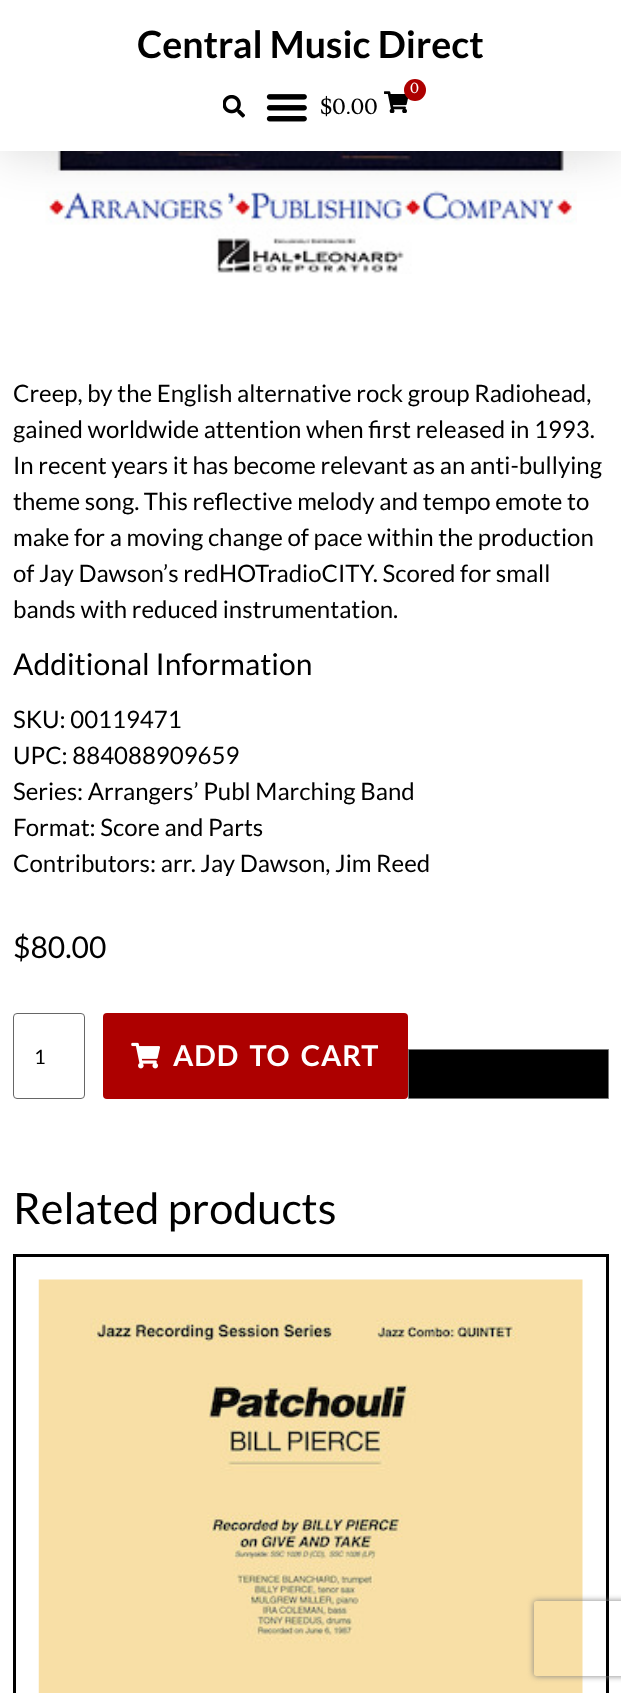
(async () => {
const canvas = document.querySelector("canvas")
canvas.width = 621
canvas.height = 1693
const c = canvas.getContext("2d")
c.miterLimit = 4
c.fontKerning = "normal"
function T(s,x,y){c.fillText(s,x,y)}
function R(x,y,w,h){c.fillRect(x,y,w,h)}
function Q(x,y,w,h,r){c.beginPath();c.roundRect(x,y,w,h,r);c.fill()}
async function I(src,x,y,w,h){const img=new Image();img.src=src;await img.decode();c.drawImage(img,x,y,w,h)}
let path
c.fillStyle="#fff"
R(0,0,621,1693)
await I("4.png",45,151,532,123)
c.fillStyle="#00000029"
c.filter="blur(25px)"
c.beginPath()
c.rect(0,0,621,151)
c.fill()
c.filter="none"
c.fillStyle="#fff"
R(0,0,621,151)
c.font="bold 37.5px Lato"
c.fillStyle="#000"
T("Central Music Direct",137,58)
await I("1.png",223,95,22,23)
await I("2.png",266,94,41,28)
await I("3.png",384,91,25,22)
c.fillStyle="#ad0000"
c.beginPath()
c.arc(415,90,11,0,7)
c.fill()
c.font="15px Lusitana"
c.fillStyle="#fff"
T("0",410,93)
c.font="22.5px Lusitana"
c.fillStyle="#000"
T("$0.00",320,114)
c.font="24px Lato"
T("Creep, by the English alternative rock group Radiohead,",13,402)
T("gained worldwide attention when first released in 1993.",13,438)
T("In recent years it has become relevant as an anti-bullying",13,474)
T("theme song. This reflective melody and tempo emote to",13,510)
T("make for a moving change of pace within the production",13,546)
T("of Jay Dawson’s redHOTradioCITY. Scored for small",13,582)
T("bands with reduced instrumentation.",13,618)
c.font="30px Lato"
T("Additional Information",13,675)
c.font="24px Lato"
T("SKU: 00119471",13,728)
T("UPC: 884088909659",13,764)
T("Series: Arrangers’ Publ Marching Band",13,800)
T("Format: Score and Parts",13,836)
T("Contributors: arr. Jay Dawson, Jim Reed",13,872)
c.font="30px Lato"
T("$80.00",13,958)
c.beginPath()
c.roundRect(13.5,1013.5,71,85,3.5)
c.strokeStyle="#666"
c.stroke()
c.font="20px Lato"
T("1",34,1064)
c.fillStyle="#ad0000"
Q(103,1013,305,86,4)
await I("5.png",131,1042,29,27)
c.letterSpacing="0.9px"
c.wordSpacing="4px"
c.font="bold 28.75px Lato"
c.fillStyle="#fff"
T("ADD TO CART",173,1066)
c.fillStyle="#000"
c.beginPath()
c.rect(408.5,1049.5,200,49)
c.fill()
c.strokeStyle="#757575"
c.stroke()
c.letterSpacing="0px"
c.wordSpacing="0px"
c.font="43.25px Lato"
T("Related products",13,1224)
c.strokeStyle="#000"
c.lineWidth=3
c.strokeRect(14.5,1255.5,593,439)
await I("6.png",38,1279,545,414)
c.save()
path = new Path2D("M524 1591h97v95h-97zm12.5 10h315c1.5 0 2.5 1 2.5 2.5v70c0 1.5-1 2.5-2.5 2.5h-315c-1.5 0-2.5-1-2.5-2.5v-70c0-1.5 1-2.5 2.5-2.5z")
c.clip(path,"evenodd")
c.fillStyle="#808080"
c.filter="blur(3px)"
c.beginPath()
c.roundRect(534,1601,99,75,2.5)
c.fill()
c.filter="none"
c.restore()
})()
